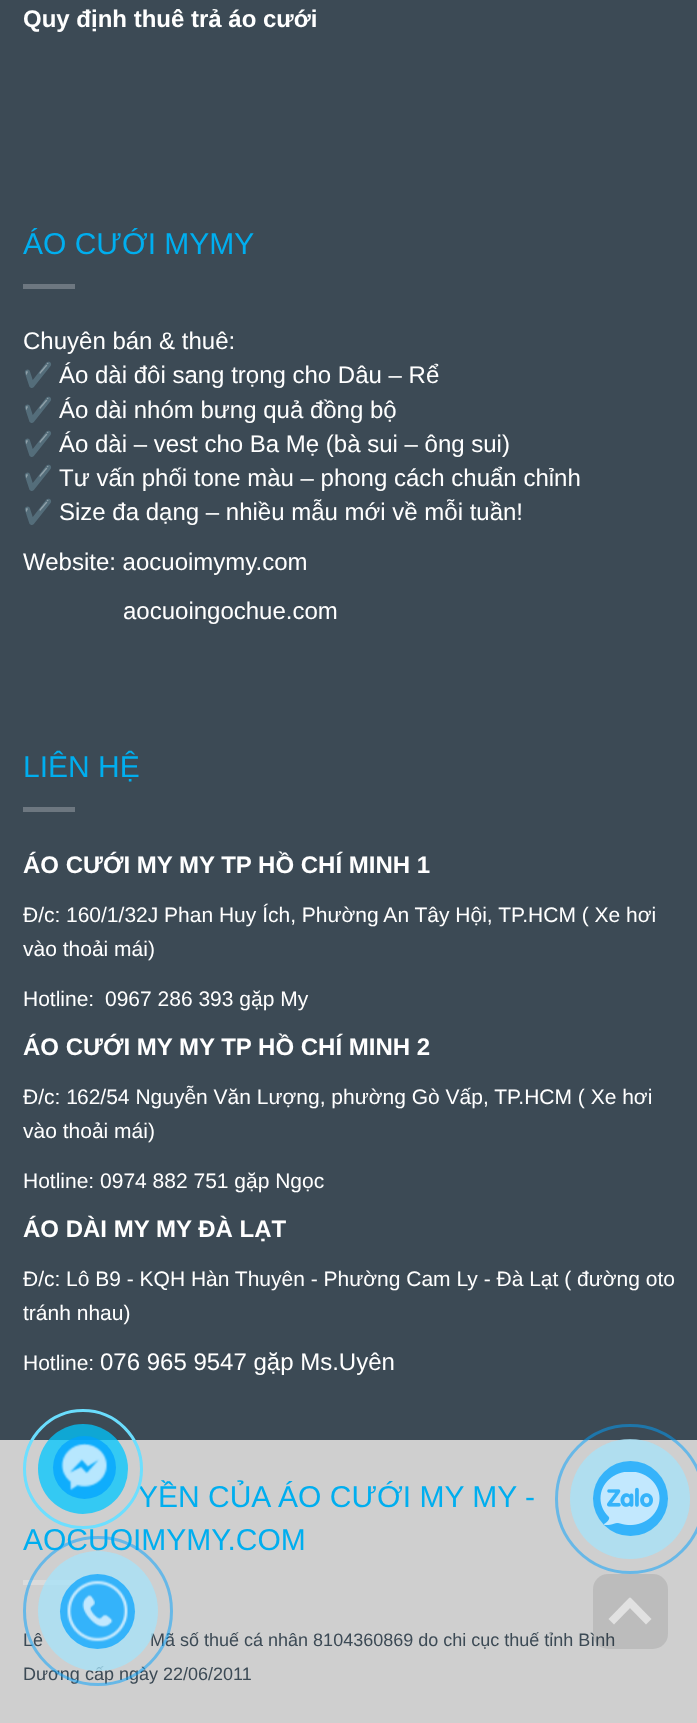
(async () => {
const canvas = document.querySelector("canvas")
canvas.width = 697
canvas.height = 1723
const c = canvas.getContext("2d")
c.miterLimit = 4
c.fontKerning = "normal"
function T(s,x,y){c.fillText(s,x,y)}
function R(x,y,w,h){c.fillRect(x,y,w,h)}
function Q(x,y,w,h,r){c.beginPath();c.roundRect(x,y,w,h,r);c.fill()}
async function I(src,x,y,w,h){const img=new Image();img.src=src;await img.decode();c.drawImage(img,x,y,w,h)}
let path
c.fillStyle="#3c4a55"
R(0,0,697,1723)
c.font="bold 24px Liberation Sans"
c.fillStyle="#fff"
T("Quy định thuê trả áo cưới",23,27)
c.font="30px Liberation Sans"
c.fillStyle="#00aeef"
T("ÁO CƯỚI MYMY",23,254)
c.fillStyle="#6d7780"
R(23,284,52,5)
c.font="24px Liberation Sans"
c.fillStyle="#fff"
T("Chuyên bán & thuê:",23,349)
c.save()
c.beginPath()
c.rect(23,326,652,367)
c.clip()
c.font="24px Noto Color Emoji"
T("✔️",23,383)
c.restore()
T("Áo dài đôi sang trọng cho Dâu – Rể",59,383)
c.save()
c.beginPath()
c.rect(23,326,652,367)
c.clip()
c.font="24px Noto Color Emoji"
T("✔️",23,418)
c.restore()
T("Áo dài nhóm bưng quả đồng bộ",59,418)
c.save()
c.beginPath()
c.rect(23,326,652,367)
c.clip()
c.font="24px Noto Color Emoji"
T("✔️",23,452)
c.restore()
T("Áo dài – vest cho Ba Mẹ (bà sui – ông sui)",59,452)
c.save()
c.beginPath()
c.rect(23,326,652,367)
c.clip()
c.font="24px Noto Color Emoji"
T("✔️",23,486)
c.restore()
T("Tư vấn phối tone màu – phong cách chuẩn chỉnh",59,486)
c.save()
c.beginPath()
c.rect(23,326,652,367)
c.clip()
c.font="24px Noto Color Emoji"
T("✔️",23,520)
c.restore()
T("Size đa dạng – nhiều mẫu mới về mỗi tuần!",59,520)
T("Website: aocuoimymy.com",23,570)
T("aocuoingochue.com",123,619)
c.font="30px Liberation Sans"
c.fillStyle="#00aeef"
T("LIÊN HỆ",23,777)
c.fillStyle="#6d7780"
R(23,807,52,5)
c.font="bold 24px Liberation Sans"
c.fillStyle="#fff"
T("ÁO CƯỚI MY MY TP HỒ CHÍ MINH 1",23,873)
c.save()
c.beginPath()
c.rect(23,849,652,546)
c.clip()
c.font="21px Liberation Sans"
T("Đ/c:",23,922)
c.restore()
c.font="21px Liberation Sans"
T("160/1/32J Phan Huy Ích, Phường An Tây Hội, TP.HCM ( Xe hơi",66,922)
T("vào thoải mái)",23,956)
T("Hotline:",23,1006)
T("0967 286 393 gặp My",105,1006)
c.font="bold 24px Liberation Sans"
T("ÁO CƯỚI MY MY TP HỒ CHÍ MINH 2",23,1055)
c.save()
c.beginPath()
c.rect(23,849,652,546)
c.clip()
c.font="21px Liberation Sans"
T("Đ/c: 1",23,1104)
c.restore()
c.font="21px Liberation Sans"
T("62/54 Nguyễn Văn Lượng, phường Gò Vấp, TP.HCM ( Xe hơi",77,1104)
T("vào thoải mái)",23,1138)
T("Hotline: 0974 882 751 gặp Ngọc",23,1188)
c.font="bold 24px Liberation Sans"
T("ÁO DÀI MY MY ĐÀ LẠT",23,1237)
c.save()
c.beginPath()
c.rect(23,849,652,546)
c.clip()
c.font="21px Liberation Sans"
T("Đ/c:",23,1286)
c.restore()
c.font="21px Liberation Sans"
T("Lô B9 - KQH Hàn Thuyên - Phường Cam Ly - Đà Lạt ( đường oto",66,1286)
T("tránh nhau)",23,1320)
T("Hotline:",23,1370)
c.font="24px Liberation Sans"
T("076 965 9547 gặp Ms.Uyên",100,1370)
c.fillStyle="#cfcfcf"
R(0,1440,697,283)
c.font="30px Liberation Sans"
c.fillStyle="#00aeef"
T("YỀN CỦA ÁO CƯỚI MY MY -",138,1507)
T("AOCUOIMYMY.COM",23,1550)
c.fillStyle="#dbdbdb"
R(23,1580,52,5)
c.font="18px Liberation Sans"
c.fillStyle="#3c4a55"
T("Lê",23,1646)
T("Mã số thuế cá nhân 8104360869 do chi cục thuế tỉnh Bình",150,1646)
T("Dương cấp ngày 22/06/2011",23,1680)
c.beginPath()
c.arc(83,1469,58.5,0,7)
c.strokeStyle="#6bdffffc"
c.lineWidth=3
c.stroke()
c.fillStyle="#00c7ffbf"
c.beginPath()
c.arc(83,1469,45,0,7)
c.fill()
c.fillStyle="#00a1ffb3"
c.beginPath()
c.arc(84.5,1467.5,31.5,0,7)
c.fill()
await I("1.png",61,1443,47,48)
c.beginPath()
c.arc(630,1499,73.5,0,7)
c.strokeStyle="#00a1ff80"
c.stroke()
c.fillStyle="#a6e3fabf"
c.beginPath()
c.arc(630,1499,60,0,7)
c.fill()
c.fillStyle="#35b3fa"
c.beginPath()
c.arc(630.5,1498.5,37.5,0,7)
c.fill()
await I("2.png",600,1472,60,54)
c.beginPath()
c.arc(98,1611,73.5,0,7)
c.stroke()
c.fillStyle="#a6e3fabf"
c.beginPath()
c.arc(98,1611,60,0,7)
c.fill()
c.fillStyle="#00a1ffb3"
c.beginPath()
c.arc(97.5,1611.5,37.5,0,7)
c.fill()
await I("3.png",67,1580,61,62)
c.fillStyle="#00000017"
Q(593,1574,75,75,15)
c.fillStyle="#e1e1e1"
path = new Path2D("M625 1603l5.5-5.5l21 21.5l-5.5 5.5z")
c.fill(path)
path = new Path2D("M629.5 1597.5l5.5 5.5l-21 21.5l-5.5-5.5z")
c.fill(path)
})()
